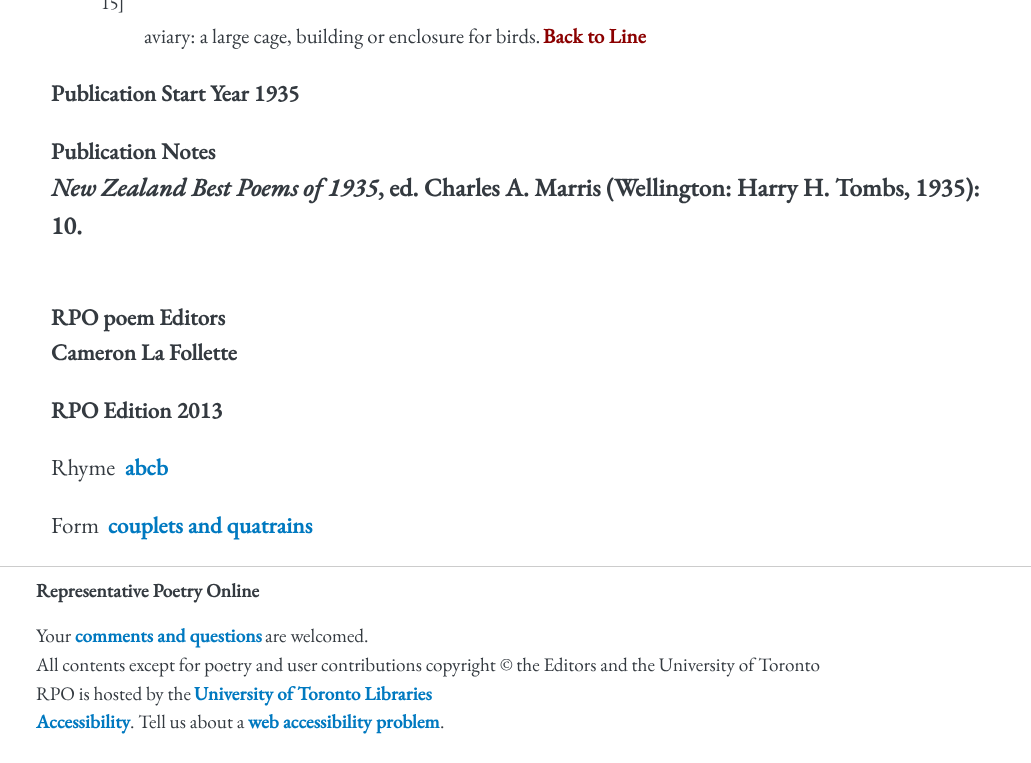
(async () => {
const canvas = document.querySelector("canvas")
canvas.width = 1031
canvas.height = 763
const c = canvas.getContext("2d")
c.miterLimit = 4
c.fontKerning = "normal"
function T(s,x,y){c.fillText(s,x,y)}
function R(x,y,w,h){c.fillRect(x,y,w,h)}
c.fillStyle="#fff"
R(0,0,1031,763)
c.font="18px EB Garamond"
c.fillStyle="#343a40"
T("15]",101,9)
c.font="20.75px EB Garamond"
T("aviary: a large cage, building or enclosure for birds.",144,43)
c.font="bold 20.75px EB Garamond"
c.fillStyle="#8b0000"
T("Back to Line",543,43)
c.font="bold 23px EB Garamond"
c.fillStyle="#343a40"
T("Publication Start Year 1935",51,101)
T("Publication Notes",51,159)
c.font="italic bold 25.3px EB Garamond"
T("New Zealand Best Poems of 1935",51,196)
c.font="bold 25.3px EB Garamond"
T(", ed. Charles A. Marris (Wellington: Harry H. Tombs, 1935):",378,196)
T("10.",51,234)
c.font="bold 23px EB Garamond"
T("RPO poem Editors",51,325)
T("Cameron La Follette",51,360)
T("RPO Edition 2013",51,418)
c.font="23px EB Garamond"
T("Rhyme",51,475)
c.font="bold 23px EB Garamond"
c.fillStyle="#0079c0"
T("abcb",125,475)
c.font="23px EB Garamond"
c.fillStyle="#343a40"
T("Form",51,533)
c.font="bold 23px EB Garamond"
c.fillStyle="#0079c0"
T("couplets and quatrains",108,533)
c.fillStyle="#ccc"
R(0,566,1031,1)
c.font="bold 19.2px EB Garamond"
c.fillStyle="#343a40"
T("Representative Poetry Online",36,597)
c.font="19.2px EB Garamond"
T("Your",36,642)
c.font="bold 19.2px EB Garamond"
c.fillStyle="#0079c0"
T("comments and questions",75,642)
c.font="19.2px EB Garamond"
c.fillStyle="#343a40"
T("are welcomed.",265,642)
T("All contents except for poetry and user contributions copyright © the Editors and the University of Toronto",36,671)
T("RPO is hosted by the",36,700)
c.font="bold 19.2px EB Garamond"
c.fillStyle="#0079c0"
T("University of Toronto Libraries",194,700)
T("Accessibility",36,728)
c.font="19.2px EB Garamond"
c.fillStyle="#343a40"
T(". Tell us about a",130,728)
c.font="bold 19.2px EB Garamond"
c.fillStyle="#0079c0"
T("web accessibility problem",248,728)
c.font="19.2px EB Garamond"
c.fillStyle="#343a40"
T(".",440,728)
})()
